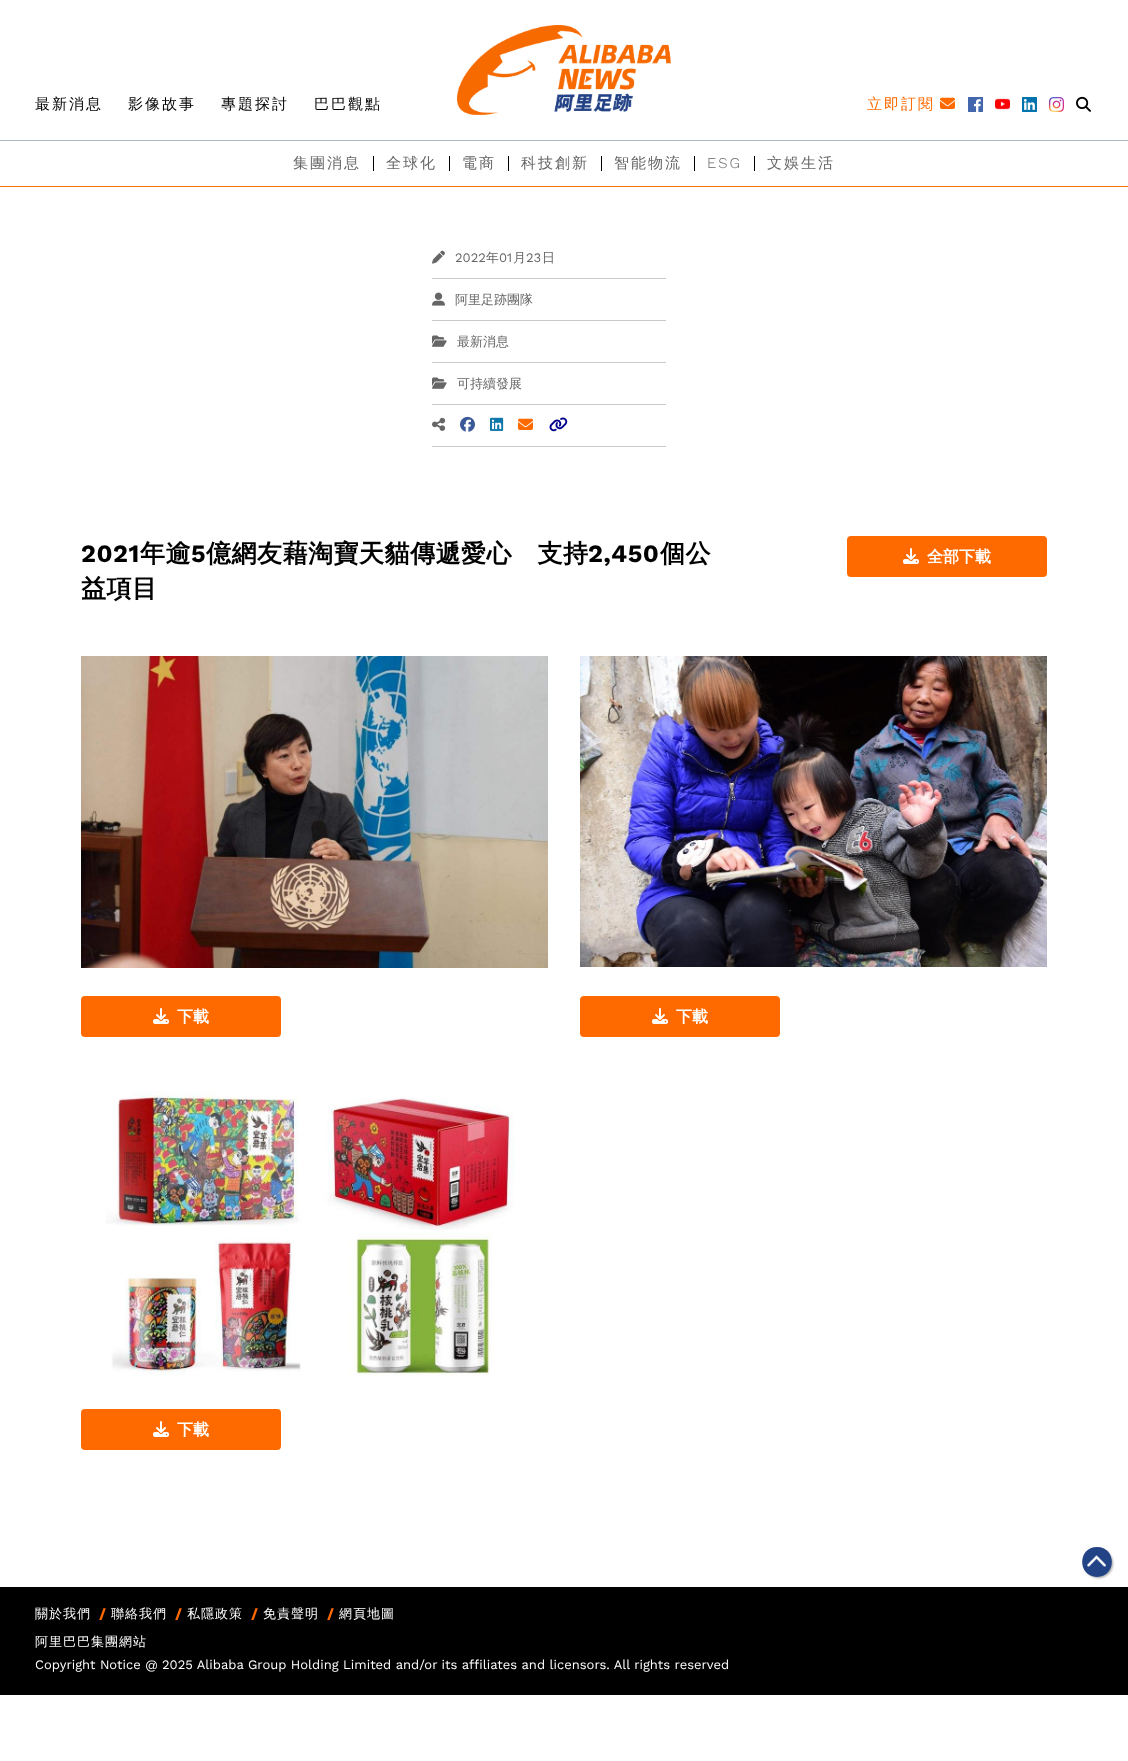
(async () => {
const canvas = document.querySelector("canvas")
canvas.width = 1128
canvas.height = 1761
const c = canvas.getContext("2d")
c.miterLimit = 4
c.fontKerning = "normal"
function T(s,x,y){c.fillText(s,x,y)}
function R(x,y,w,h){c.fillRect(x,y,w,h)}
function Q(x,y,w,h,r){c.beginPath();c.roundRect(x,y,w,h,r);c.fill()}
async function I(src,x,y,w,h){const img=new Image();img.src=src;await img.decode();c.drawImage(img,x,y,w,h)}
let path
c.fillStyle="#fff"
R(0,0,1128,1761)
c.fillStyle="#aab9c1"
R(0,140,1128,1)
c.letterSpacing="2px"
c.font="500 15px WenQuanYi Zen Hei"
c.fillStyle="#000"
T("最新消息",35,109)
T("影像故事",128,109)
T("專題探討",221,109)
T("巴巴觀點",314,109)
await I("1.png",457,25,214,90)
c.fillStyle="#ff6a00"
T("立即訂閱",867,109)
await I("2.png",940,97,15,12)
await I("3.png",968,97,15,15)
await I("4.png",995,98,15,12)
await I("5.png",1022,97,15,15)
await I("6.png",1049,97,15,15)
await I("7.png",1076,96,15,16)
c.fillStyle="#ff7300"
R(0,186,1128,1)
c.fillStyle="#666"
T("集團消息",293,168)
c.fillStyle="#000"
R(373,156,1,15)
c.fillStyle="#666"
T("全球化",386,168)
c.fillStyle="#000"
R(449,156,1,15)
c.fillStyle="#666"
T("電商",462,168)
c.fillStyle="#000"
R(508,156,1,15)
c.fillStyle="#666"
T("科技創新",521,168)
c.fillStyle="#000"
R(601,156,1,15)
c.fillStyle="#666"
T("智能物流",614,168)
c.fillStyle="#000"
R(694,156,1,15)
c.font="300 15px Work Sans"
c.fillStyle="#666"
T("ESG",707,168)
c.fillStyle="#000"
R(754,156,1,15)
c.font="500 15px WenQuanYi Zen Hei"
c.fillStyle="#666"
T("文娛生活",767,168)
await I("8.png",432,250,13,14)
c.letterSpacing="0px"
c.font="13px Work Sans"
T("2022",455,262)
c.font="500 13px WenQuanYi Zen Hei"
T("年",486,262)
c.font="13px Work Sans"
T("01",499,262)
c.font="500 13px WenQuanYi Zen Hei"
T("月",513,262)
c.font="13px Work Sans"
T("23",526,262)
c.font="500 13px WenQuanYi Zen Hei"
T("日",542,262)
c.fillStyle="#cacaca"
R(432,278,234,1)
await I("9.png",432,292,13,14)
c.fillStyle="#666"
T("阿里足跡團隊",455,304)
c.fillStyle="#cacaca"
R(432,320,234,1)
await I("10.png",432,335,15,12)
c.fillStyle="#666"
T("最新消息",457,346)
c.fillStyle="#cacaca"
R(432,362,234,1)
await I("10.png",432,377,15,12)
c.fillStyle="#666"
T("可持續發展",457,388)
c.fillStyle="#cacaca"
R(432,404,234,1)
await I("11.png",432,417,14,14)
await I("12.png",460,416,15,16)
await I("13.png",490,417,14,14)
await I("2.png",518,418,15,12)
await I("14.png",549,417,19,15)
R(432,446,234,1)
c.letterSpacing="0.5px"
c.font="bold 25px Work Sans"
c.fillStyle="#000"
T("2021",81,562)
c.font="bold 25px WenQuanYi Zen Hei"
T("年逾",140,562)
c.font="bold 25px Work Sans"
T("5",191,562)
c.font="bold 25px WenQuanYi Zen Hei"
T("億網友藉淘寶天貓傳遞愛心　支持",206,562)
c.font="bold 25px Work Sans"
T("2,450",588,562)
c.font="bold 25px WenQuanYi Zen Hei"
T("個公",660,562)
T("益項目",81,597)
c.fillStyle="#ff6a00"
Q(847,536,200,41,4)
await I("15.png",903,548,16,16)
c.letterSpacing="0px"
c.font="bold 16px WenQuanYi Zen Hei"
c.fillStyle="#fff"
T("全部下載",927,562)
await I("16.png",81,656,467,312)
c.fillStyle="#ff6a00"
Q(81,996,200,41,4)
await I("15.png",153,1008,16,16)
c.fillStyle="#fff"
T("下載",177,1022)
await I("17.png",580,656,467,311)
c.fillStyle="#ff6a00"
Q(580,996,200,41,4)
await I("15.png",652,1008,16,16)
c.fillStyle="#fff"
T("下載",676,1022)
await I("18.png",106,1091,408,285)
c.fillStyle="#ff6a00"
Q(81,1409,200,41,4)
await I("15.png",153,1421,16,16)
c.fillStyle="#fff"
T("下載",177,1435)
c.fillStyle="#00000059"
c.filter="blur(1px)"
c.beginPath()
c.roundRect(1084,1549,29,29,14.5)
c.fill()
c.filter="none"
c.fillStyle="#234387"
path = new Path2D("M1097 1577c20-.5 19.5-30 0-30c-19.5 0-20 29.5 0 30z")
c.fill(path)
await I("19.png",1087,1555,19,12)
c.fillStyle="#000"
R(0,1587,1128,108)
c.letterSpacing="1px"
c.font="500 13px WenQuanYi Zen Hei"
c.fillStyle="#fff"
T("關於我們",35,1618)
c.font="bold 15px Work Sans"
c.fillStyle="#ff6a00"
T("/",99,1619)
c.font="500 13px WenQuanYi Zen Hei"
c.fillStyle="#fff"
T("聯絡我們",111,1618)
c.font="bold 15px Work Sans"
c.fillStyle="#ff6a00"
T("/",175,1619)
c.font="500 13px WenQuanYi Zen Hei"
c.fillStyle="#fff"
T("私隱政策",187,1618)
c.font="bold 15px Work Sans"
c.fillStyle="#ff6a00"
T("/",251,1619)
c.font="500 13px WenQuanYi Zen Hei"
c.fillStyle="#fff"
T("免責聲明",263,1618)
c.font="bold 15px Work Sans"
c.fillStyle="#ff6a00"
T("/",327,1619)
c.font="500 13px WenQuanYi Zen Hei"
c.fillStyle="#fff"
T("網頁地圖",339,1618)
T("阿里巴巴集團網站",35,1646)
c.letterSpacing="0px"
c.font="13px Work Sans"
T("Copyright Notice @ 2025 Alibaba Group Holding Limited and/or its affiliates and licensors. All rights reserved",35,1669)
})()
